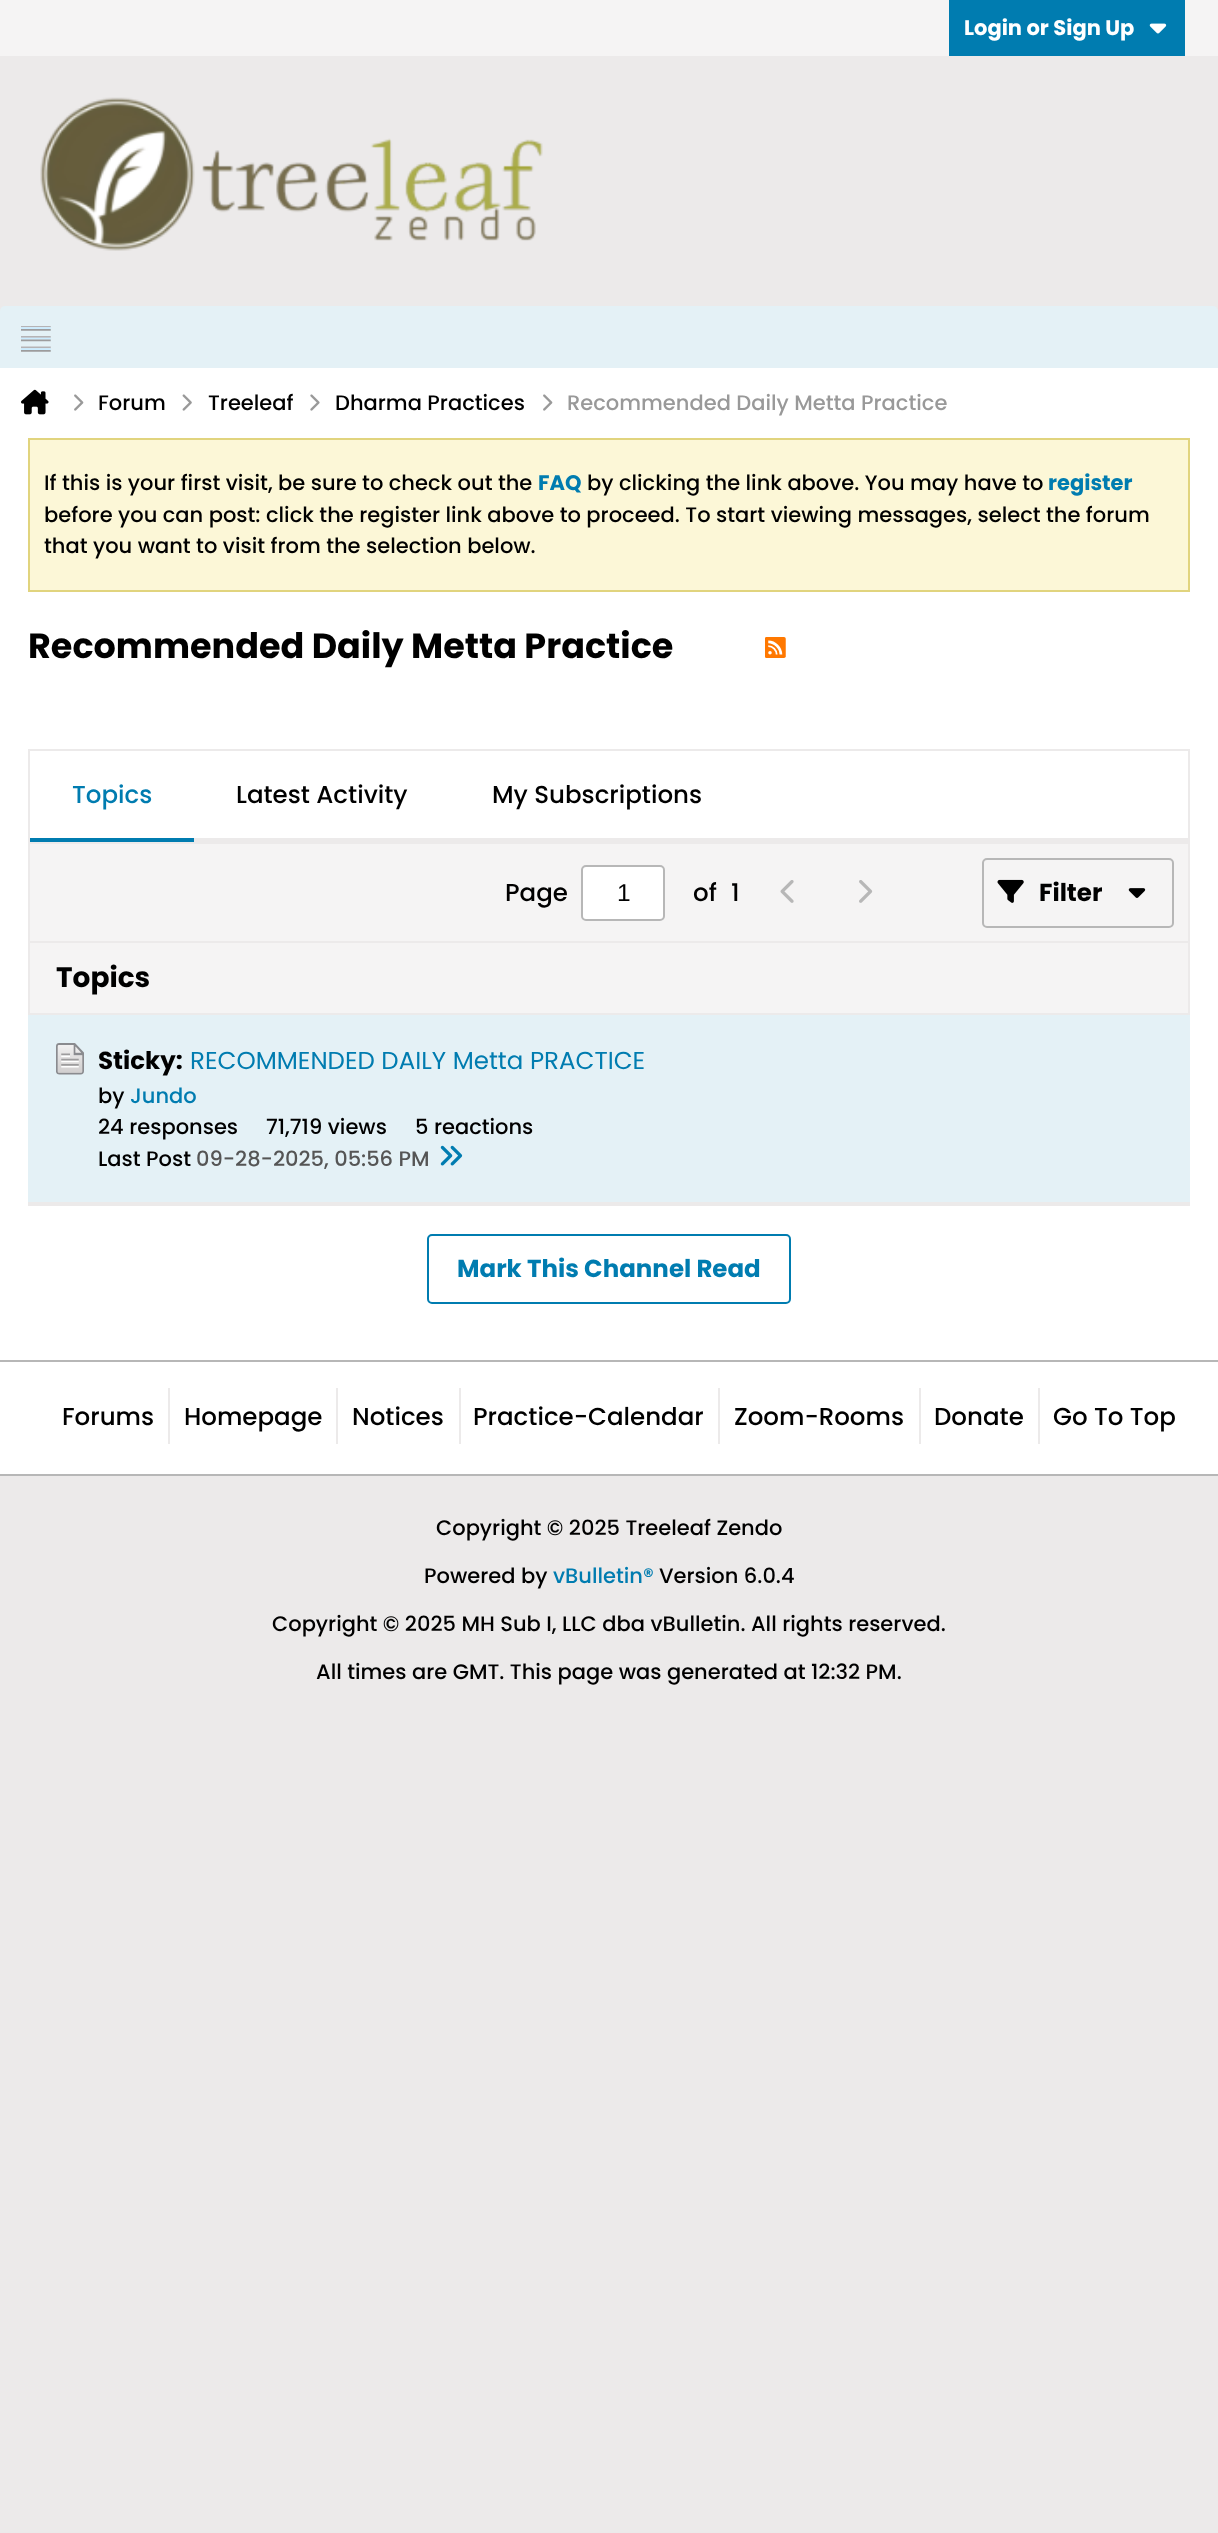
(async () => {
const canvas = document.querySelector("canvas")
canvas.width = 1218
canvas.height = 2533
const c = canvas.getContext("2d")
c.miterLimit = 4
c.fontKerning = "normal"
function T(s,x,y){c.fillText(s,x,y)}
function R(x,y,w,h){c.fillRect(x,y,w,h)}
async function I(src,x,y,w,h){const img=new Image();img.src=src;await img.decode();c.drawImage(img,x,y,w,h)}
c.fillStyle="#eceaea"
R(0,0,1218,2533)
c.fillStyle="#f5f4f4"
R(0,0,1218,56)
c.fillStyle="#007cb0"
R(949,0,236,56)
c.font="bold 21px Poppins"
c.fillStyle="#fff"
T("Login or Sign Up",964,35)
await I("1.png",1149,23,18,11)
await I("2.png",40,97,503,154)
c.fillStyle="#e4f1f6"
c.beginPath()
c.roundRect(0,306,1218,62,[5,5,0,0])
c.fill()
await I("3.png",21,326,30,26)
c.fillStyle="#fff"
R(0,368,1218,992)
await I("4.png",21,389,28,26)
await I("5.png",74,394,10,17)
c.font="500 21px Poppins"
c.fillStyle="#000"
T("Forum",98,410)
await I("6.png",182,394,10,17)
T("Treeleaf",208,410)
await I("7.png",310,394,10,17)
T("Dharma Practices",335,410)
await I("5.png",543,394,10,17)
c.fillStyle="#999"
T("Recommended Daily Metta Practice",567,410)
c.fillStyle="#fcf7d7"
c.beginPath()
c.rect(29,439,1160,152)
c.fill()
c.strokeStyle="#e1d47e"
c.lineWidth=2
c.stroke()
c.fillStyle="#000"
T("If this is your first visit, be sure to check out the",44,490)
c.font="bold 21px Poppins"
c.fillStyle="#007cb0"
T("FAQ",538,490)
c.font="500 21px Poppins"
c.fillStyle="#000"
T("by clicking the link above. You may have to",587,490)
c.font="bold 21px Poppins"
c.fillStyle="#007cb0"
T("register",1048,490)
c.font="500 21px Poppins"
c.fillStyle="#000"
T("before you can post: click the register link above to proceed. To start viewing messages, select the forum",44,522)
T("that you want to visit from the selection below.",44,553)
c.font="bold 35px Poppins"
T("Recommended Daily Metta Practice",28,658)
await I("8.png",765,637,21,21)
c.fillStyle="#eceaea"
R(28,749,1162,2)
R(1188,749,2,93)
R(194,838,996,4)
R(28,749,2,93)
c.fillStyle="#007cb0"
R(30,838,164,4)
c.font="500 24.5px Poppins"
T("Topics",72,803)
c.fillStyle="#000"
T("Latest Activity",236,803)
T("My Subscriptions",492,803)
c.fillStyle="#f5f4f4"
c.beginPath()
c.rect(29,843,1160,99)
c.fill()
c.strokeStyle="#eceaea"
c.stroke()
c.fillStyle="#000"
T("Page",505,901)
c.fillStyle="#fff"
c.beginPath()
c.roundRect(582,866,82,54,4)
c.fill()
c.strokeStyle="#b7b7b7"
c.stroke()
c.font="24.5px Liberation Sans"
c.fillStyle="#000"
T("1",617,901)
c.font="500 24.5px Poppins"
T("of",693,901)
T("1",731,901)
await I("9.png",780,880,14,23)
await I("10.png",859,880,14,23)
c.beginPath()
c.roundRect(983,859,190,68,4)
c.stroke()
await I("11.png",997,879,27,24)
c.font="bold 24.5px Poppins"
T("Filter",1039,901)
await I("12.png",1128,888,18,10)
c.fillStyle="#eceaea"
R(28,1202,1162,4)
c.fillStyle="#f5f4f4"
R(30,943,1158,70)
c.fillStyle="#eceaea"
R(1188,943,2,70)
R(28,943,2,70)
c.font="bold 28px Poppins"
c.fillStyle="#000"
T("Topics",56,987)
c.fillStyle="#e4f1f6"
R(28,1015,1162,187)
c.fillStyle="#eceaea"
R(28,1013,1162,2)
await I("13.png",56,1043,28,32)
c.font="bold 24.5px Poppins"
c.fillStyle="#000"
T("Sticky:",98,1069)
c.font="24.5px Poppins"
c.fillStyle="#007cb0"
T("RECOMMENDED DAILY Metta PRACTICE",190,1069)
c.font="500 21px Poppins"
c.fillStyle="#000"
T("by",98,1103)
c.fillStyle="#007cb0"
T("Jundo",130,1103)
c.fillStyle="#000"
T("24 responses",98,1134)
T("71,719 views",266,1134)
T("5 reactions",415,1134)
T("Last Post",98,1166)
c.fillStyle="#555"
T("09-28-2025, 05:56 PM",196,1166)
await I("14.png",440,1145,23,21)
c.beginPath()
c.roundRect(428,1235,362,68,4)
c.strokeStyle="#007cb0"
c.stroke()
c.font="bold 24.5px Poppins"
c.fillStyle="#007cb0"
T("Mark This Channel Read",457,1277)
c.fillStyle="#fff"
R(0,1362,1218,112)
c.fillStyle="#b7b7b7"
R(0,1360,1218,2)
R(0,1474,1218,2)
c.font="500 24.5px Poppins"
c.fillStyle="#000"
T("Forums",62,1425)
c.fillStyle="#eceaea"
R(168,1388,2,56)
c.fillStyle="#000"
T("Homepage",184,1425)
c.fillStyle="#eceaea"
R(336,1388,2,56)
c.fillStyle="#000"
T("Notices",352,1425)
c.fillStyle="#eceaea"
R(459,1388,2,56)
c.fillStyle="#000"
T("Practice-Calendar",473,1425)
c.fillStyle="#eceaea"
R(718,1388,2,56)
c.fillStyle="#000"
T("Zoom-Rooms",734,1425)
c.fillStyle="#eceaea"
R(919,1388,2,56)
c.fillStyle="#000"
T("Donate",934,1425)
c.fillStyle="#eceaea"
R(1038,1388,2,56)
c.fillStyle="#000"
T("Go To Top",1053,1425)
c.font="500 21px Poppins"
T("Copyright © 2025 Treeleaf Zendo",436,1535)
T("Powered by",424,1583)
c.fillStyle="#007cb0"
T("vBulletin®",553,1583)
c.fillStyle="#000"
T("Version 6.0.4",659,1583)
T("Copyright © 2025 MH Sub I, LLC dba vBulletin. All rights reserved.",272,1631)
T("All times are GMT. This page was generated at 12:32 PM.",316,1679)
})()
